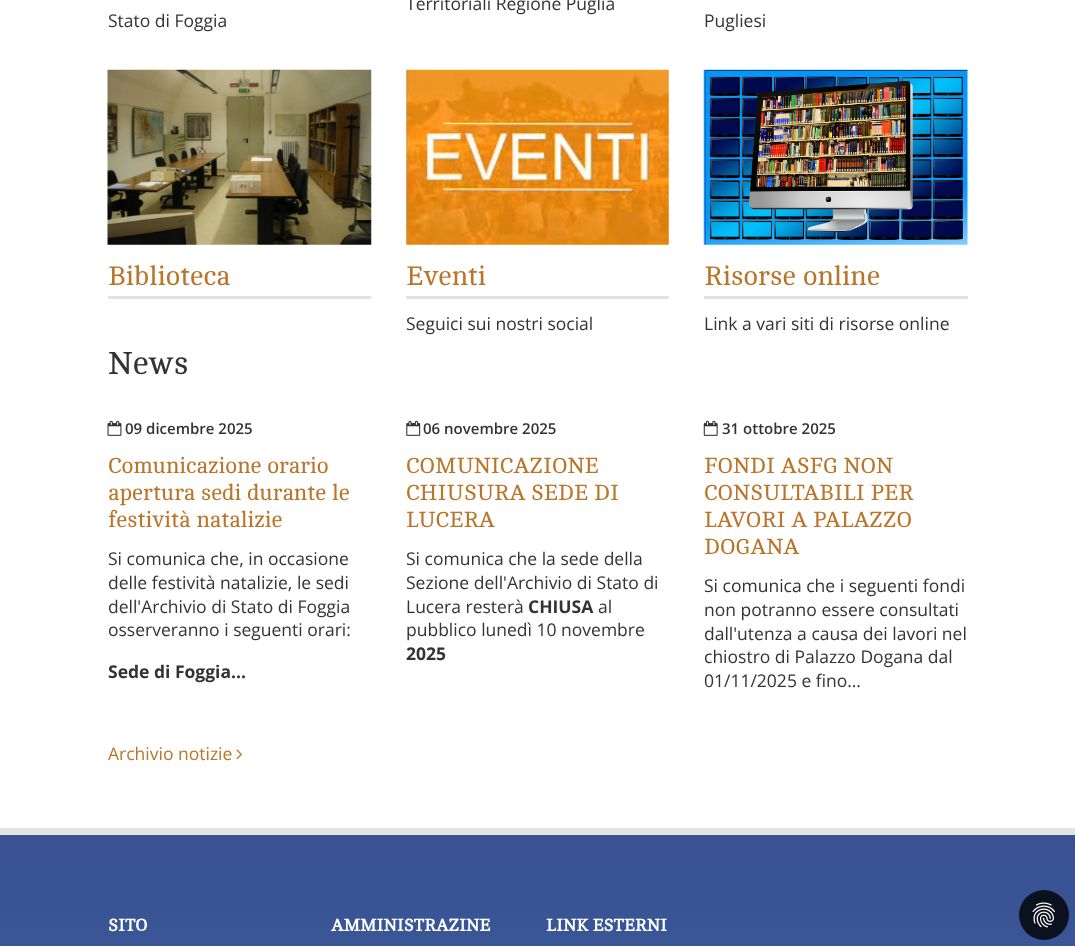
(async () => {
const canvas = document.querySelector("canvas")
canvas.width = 1075
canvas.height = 946
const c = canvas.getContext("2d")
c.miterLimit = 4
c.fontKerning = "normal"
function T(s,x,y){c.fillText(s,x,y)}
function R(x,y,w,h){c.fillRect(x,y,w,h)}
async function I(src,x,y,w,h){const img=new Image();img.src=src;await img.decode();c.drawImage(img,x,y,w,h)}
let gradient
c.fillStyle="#fff"
R(0,0,1075,946)
c.font="17.5px Open Sans"
c.fillStyle="#333"
T("Territoriali Regione Puglia",406,10)
T("Stato di Foggia",108,27)
T("Pugliesi",704,27)
await I("1.png",107,69,265,176)
c.fillStyle="#e3e3e3"
R(108,296,263,3)
c.font="27.5px Cambo"
c.fillStyle="#ba752a"
T("Biblioteca",108,285)
await I("2.png",406,69,263,176)
c.fillStyle="#e3e3e3"
R(406,296,263,3)
c.fillStyle="#ba752a"
T("Eventi",406,285)
c.font="17.5px Open Sans"
c.fillStyle="#333"
T("Seguici sui nostri social",406,330)
await I("3.png",703,69,265,176)
c.fillStyle="#e3e3e3"
R(704,296,264,3)
c.font="27.5px Cambo"
c.fillStyle="#ba752a"
T("Risorse online",704,285)
c.font="17.5px Open Sans"
c.fillStyle="#333"
T("Link a vari siti di risorse online",704,330)
c.font="32.5px Cambo"
T("News",108,374)
await I("4.png",107,420,15,16)
c.font="600 15px Open Sans"
T("09 dicembre 2025",125,434)
c.font="22.5px Cambo"
c.fillStyle="#ba752a"
T("Comunicazione orario",108,473)
T("apertura sedi durante le",108,500)
T("festività natalizie",108,527)
c.font="17.5px Open Sans"
c.fillStyle="#333"
T("Si comunica che, in occasione",108,565)
T("delle festività natalizie, le sedi",108,589)
T("dell'Archivio di Stato di Foggia",108,613)
T("osserveranno i seguenti orari:",108,636)
c.font="bold 17.5px Open Sans"
T("Sede di Foggia…",108,678)
await I("5.png",406,420,15,16)
c.font="600 15px Open Sans"
T("06 novembre 2025",423,434)
c.font="22.5px Cambo"
c.fillStyle="#ba752a"
T("COMUNICAZIONE",406,473)
T("CHIUSURA SEDE DI",406,500)
T("LUCERA",406,527)
c.font="17.5px Open Sans"
c.fillStyle="#333"
T("Si comunica che la sede della",406,565)
T("Sezione dell'Archivio di Stato di",406,589)
T("Lucera resterà",406,613)
c.font="bold 17.5px Open Sans"
T("CHIUSA",528,613)
c.font="17.5px Open Sans"
T("al",598,613)
T("pubblico lunedì 10 novembre",406,636)
c.font="bold 17.5px Open Sans"
T("2025",406,660)
await I("6.png",703,420,15,16)
c.font="600 15px Open Sans"
T("31 ottobre 2025",722,434)
c.font="22.5px Cambo"
c.fillStyle="#ba752a"
T("FONDI ASFG NON",704,473)
T("CONSULTABILI PER",704,500)
T("LAVORI A PALAZZO",704,527)
T("DOGANA",704,554)
c.font="17.5px Open Sans"
c.fillStyle="#333"
T("Si comunica che i seguenti fondi",704,592)
T("non potranno essere consultati",704,616)
T("dall'utenza a causa dei lavori nel",704,640)
T("chiostro di Palazzo Dogana dal",704,663)
T("01/11/2025 e fino…",704,687)
c.fillStyle="#ba752a"
T("Archivio notizie",108,760)
await I("7.png",236,749,6,11)
gradient = c.createLinearGradient(538,835,538,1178)
gradient.addColorStop(0,"#375193")
gradient.addColorStop(1,"#40609a")
c.fillStyle = gradient
R(0,835,1075,111)
c.fillStyle="#e3e3e3"
R(0,828,1075,7)
c.font="bold 17.5px Cambo"
c.fillStyle="#fff"
T("SITO",108,931)
T("AMMINISTRAZINE",331,931)
T("LINK ESTERNI",546,931)
c.fillStyle="#000000cc"
c.beginPath()
c.arc(1044,915,25,0,7)
c.fill()
await I("8.png",1032,902,23,26)
})()
